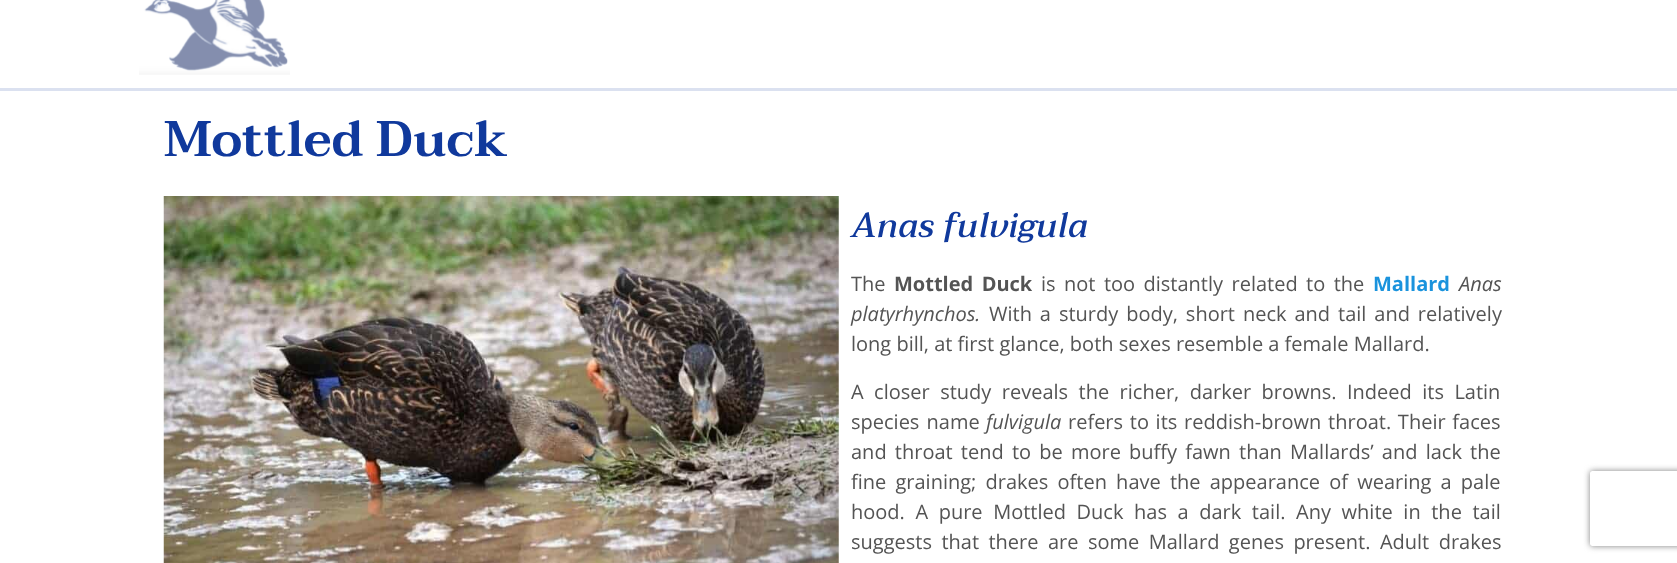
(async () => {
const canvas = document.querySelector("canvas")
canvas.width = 1677
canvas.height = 563
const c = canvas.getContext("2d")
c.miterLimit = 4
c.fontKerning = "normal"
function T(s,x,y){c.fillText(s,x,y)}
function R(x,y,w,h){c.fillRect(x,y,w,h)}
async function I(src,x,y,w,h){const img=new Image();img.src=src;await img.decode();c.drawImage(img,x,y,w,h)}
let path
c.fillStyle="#fff"
R(0,0,1677,563)
c.fillStyle="#dbe1f0"
R(0,88,1677,3)
await I("1.png",139,0,151,75)
c.font="600 50px Taviraj"
c.fillStyle="#10399c"
T("Mottled Duck",164,156)
await I("2.png",163,196,676,367)
c.font="italic 500 35px Taviraj"
T("Anas fulvigula",851,237)
c.font="20px Open Sans"
c.fillStyle="#545454"
T("The",851,291)
c.wordSpacing="3.25px"
c.font="bold 20px Open Sans"
T("Mottled Duck",894,291)
c.font="20px Open Sans"
T("is not too distantly related to the",1041,291)
c.wordSpacing="0px"
c.font="bold 20px Open Sans"
c.fillStyle="#1a93dd"
T("Mallard",1373,291)
c.font="italic 20px Open Sans"
c.fillStyle="#545454"
T("Anas",1459,291)
T("platyrhynchos.",851,321)
c.wordSpacing="2.75px"
c.font="20px Open Sans"
T("With a sturdy body, short neck and tail and relatively",989,321)
c.wordSpacing="0px"
T("long bill, at first glance, both sexes resemble a female Mallard.",851,351)
c.wordSpacing="5.25px"
T("A closer study reveals the richer, darker browns. Indeed its Latin",851,399)
c.wordSpacing="2px"
T("species name",851,429)
c.wordSpacing="0px"
c.font="italic 20px Open Sans"
T("fulvigula",986,429)
c.wordSpacing="1.5px"
c.font="20px Open Sans"
T("refers to its reddish-brown throat. Their faces",1068,429)
c.wordSpacing="3px"
T("and throat tend to be more buffy fawn than Mallards’ and lack the",851,459)
c.wordSpacing="4px"
T("fine graining; drakes often have the appearance of wearing a pale",851,489)
c.wordSpacing="5.4px"
T("hood. A pure Mottled Duck has a dark tail. Any white in the tail",851,519)
c.wordSpacing="4.25px"
T("suggests that there are some Mallard genes present. Adult drakes",851,549)
c.save()
path = new Path2D("M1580 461h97v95h-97zm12.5 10h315c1.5 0 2.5 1 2.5 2.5v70c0 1.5-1 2.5-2.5 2.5h-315c-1.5 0-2.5-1-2.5-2.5v-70c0-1.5 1-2.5 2.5-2.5z")
c.clip(path,"evenodd")
c.fillStyle="#808080"
c.filter="blur(3px)"
c.beginPath()
c.roundRect(1590,471,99,75,2.5)
c.fill()
c.filter="none"
c.restore()
})()
